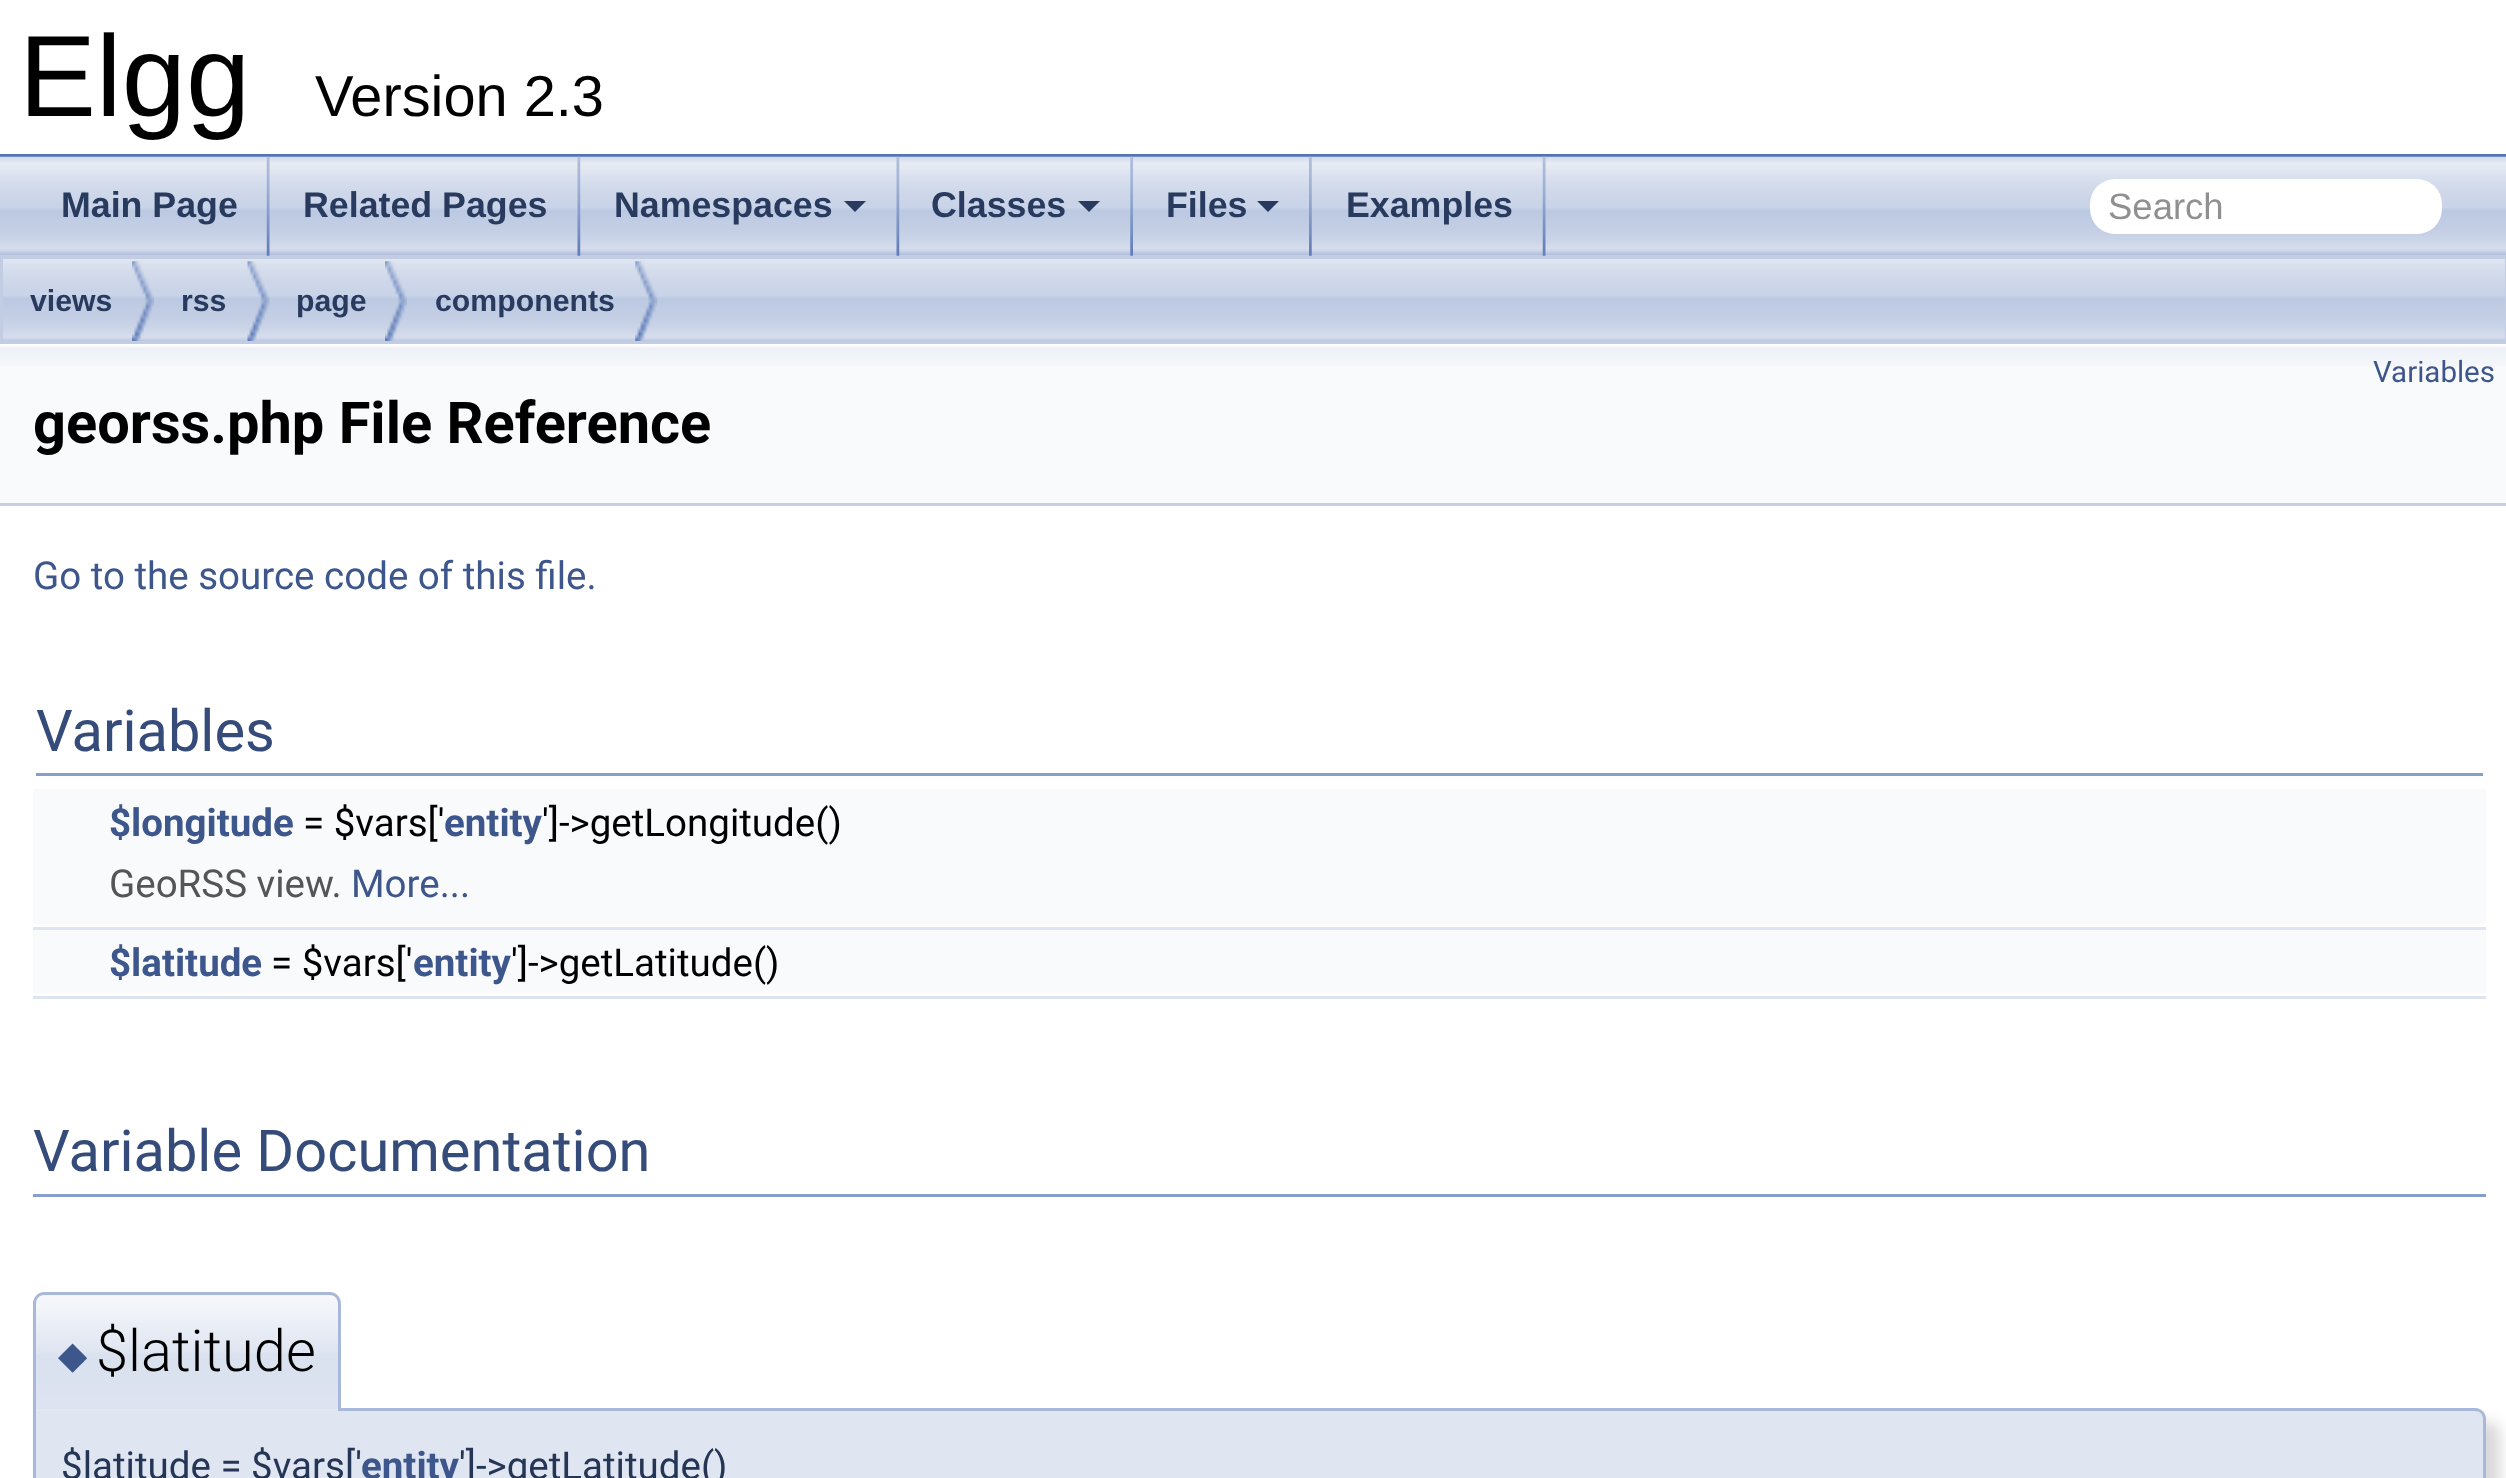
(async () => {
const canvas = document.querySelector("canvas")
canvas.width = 2506
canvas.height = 1478
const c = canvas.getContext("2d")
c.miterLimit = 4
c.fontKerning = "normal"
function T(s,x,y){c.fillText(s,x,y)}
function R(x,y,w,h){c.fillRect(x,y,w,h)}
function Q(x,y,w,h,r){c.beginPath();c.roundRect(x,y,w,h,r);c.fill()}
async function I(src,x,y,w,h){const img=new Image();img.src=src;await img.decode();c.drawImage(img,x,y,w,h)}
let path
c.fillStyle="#fff"
R(0,0,2506,1478)
c.fillStyle="#5373b4"
R(0,154,2506,3)
c.font="115.5px Liberation Sans"
c.fillStyle="#000"
T("Elgg",19,116)
c.font="57.75px Liberation Sans"
T("Version 2.3",315,116)
await I("6.png",0,255,2506,86)
await I("1.png",0,156,2506,100)
await I("2.png",266,156,4,100)
c.font="bold 35.75px Liberation Sans"
c.fillStyle="#283a5d"
T("Main Page",61,217)
await I("3.png",577,156,4,100)
T("Related Pages",303,217)
await I("3.png",896,156,4,100)
T("Namespaces",614,217)
path = new Path2D("M844 201h22l-11 11z")
c.fill(path)
await I("4.png",1130,156,3,100)
T("Classes",931,217)
path = new Path2D("M1078 201h22l-11 11z")
c.fill(path)
await I("5.png",1309,156,3,100)
T("Files",1166,217)
path = new Path2D("M1257 201h22l-11 11z")
c.fill(path)
await I("2.png",1542,156,4,100)
T("Examples",1346,217)
c.fillStyle="#fff"
Q(2090,179,352,55,25)
c.font="36.5px Liberation Sans"
c.fillStyle="#909090"
T("Search",2108,219)
c.strokeStyle="#c2cde4"
c.lineWidth=3
c.strokeRect(1.5,257.5,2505,85)
await I("7.png",132,261,22,80)
c.font="bold 30.25px Liberation Sans"
c.fillStyle="#283a5d"
T("views",30,311)
await I("8.png",247,261,23,80)
T("rss",181,311)
await I("7.png",385,261,22,80)
T("page",296,311)
await I("9.png",635,261,23,80)
T("components",435,311)
c.fillStyle="#f9fafc"
R(0,366,2506,137)
await I("10.png",0,344,2506,22)
c.fillStyle="#c4cfe5"
R(0,503,2506,3)
c.font="29.5px Roboto"
c.fillStyle="#3d578c"
T("Variables",2373,382)
c.font="bold 57.75px Roboto"
c.fillStyle="#000"
T("georss.php File Reference",33,443)
c.font="38.5px Roboto"
c.fillStyle="#3d578c"
T("Go to the source code of this file.",33,589)
c.fillStyle="#879ecb"
R(36,773,2447,3)
c.font="57.75px Roboto"
c.fillStyle="#354c7b"
T("Variables",36,751)
c.fillStyle="#f9fafc"
R(33,789,2453,64)
c.font="bold 38.5px Roboto"
c.fillStyle="#3d578c"
T("$longitude",109,836)
c.font="38.5px Roboto"
c.fillStyle="#000"
T("= $vars['",303,836)
c.font="bold 38.5px Roboto"
c.fillStyle="#3d578c"
T("entity",444,836)
c.font="38.5px Roboto"
c.fillStyle="#000"
T("']->getLongitude()",542,836)
c.fillStyle="#f9fafc"
R(33,853,2453,71)
c.fillStyle="#555"
T("GeoRSS view.",109,897)
c.fillStyle="#3d578c"
T("More...",351,897)
c.fillStyle="#dee4f0"
R(33,927,2453,3)
c.fillStyle="#f9fafc"
R(33,930,2453,63)
c.font="bold 38.5px Roboto"
c.fillStyle="#3d578c"
T("$latitude",109,976)
c.font="38.5px Roboto"
c.fillStyle="#000"
T("= $vars['",271,976)
c.font="bold 38.5px Roboto"
c.fillStyle="#3d578c"
T("entity",413,976)
c.font="38.5px Roboto"
c.fillStyle="#000"
T("']->getLatitude()",511,976)
c.fillStyle="#dee4f0"
R(33,996,2453,3)
c.fillStyle="#879ecb"
R(33,1194,2453,3)
c.font="57.75px Roboto"
c.fillStyle="#354c7b"
T("Variable Documentation",33,1171)
c.fillStyle="#00000026"
c.filter="blur(7px)"
c.beginPath()
c.roundRect(47,1422,2453,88,11)
c.fill()
c.filter="none"
c.fillStyle="#dfe5f1"
path = new Path2D("M33 1408h2442c6 0 11 5 11 11v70h-2453z")
c.fill(path)
c.fillStyle="#a8b8d9"
path = new Path2D("M33 1408h2442c6 0 11 5 11 11v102h-2453zm3 3h2439c5 0 8 3 8 8v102h-2447z")
c.fill(path,"evenodd")
c.fillStyle="#e2e8f2"
c.beginPath()
c.roundRect(33,1293,308,118,[11,11,0,0])
c.fill()
await I("11.png",33,1295,308,114)
c.fillStyle="#a8b8d9"
path = new Path2D("M44 1292h286c6 0 11 5 11 12v107h-308v-107c0-7 5-12 11-12zm0 3h286c5 0 8 4 8 9v107h-302v-107c0-5 3-9 8-9z")
c.fill(path,"evenodd")
c.font="38px DejaVu Sans"
c.fillStyle="#3d578c"
T("◆",58,1368)
c.font="300 57.75px Roboto"
c.fillStyle="#000"
T("$latitude",96,1371)
c.font="38.5px Roboto"
c.fillStyle="#253555"
T("$latitude = $vars['",61,1479)
c.font="bold 38.5px Roboto"
c.fillStyle="#3d578c"
T("entity",361,1479)
c.font="38.5px Roboto"
c.fillStyle="#253555"
T("']->getLatitude()",459,1479)
})()
